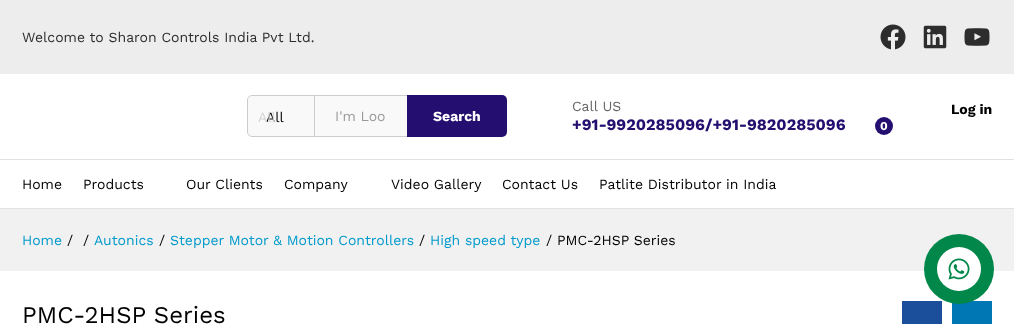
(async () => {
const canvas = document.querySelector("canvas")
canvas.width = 1014
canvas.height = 324
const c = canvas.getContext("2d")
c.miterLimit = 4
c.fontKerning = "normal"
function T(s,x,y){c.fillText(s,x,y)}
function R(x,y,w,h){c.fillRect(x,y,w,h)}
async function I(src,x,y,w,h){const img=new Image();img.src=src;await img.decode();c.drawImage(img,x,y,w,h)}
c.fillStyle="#fff"
R(0,0,1014,324)
c.fillStyle="#ededed"
R(0,0,1014,74)
c.font="14px Work Sans"
c.fillStyle="#2d2d2d"
T("Welcome to Sharon Controls India Pvt Ltd.",22,42)
await I("1.png",880,24,26,26)
await I("2.png",923,25,24,24)
await I("3.png",964,28,26,18)
c.fillStyle="#f9f9f9"
c.beginPath()
c.roundRect(247.5,95.5,67,41,[4.5,0,0,4.5])
c.fill()
c.strokeStyle="#ccc"
c.stroke()
c.fillStyle="#000"
T("All",266,122)
c.fillStyle="#d3d3d3"
T("All",258,122)
c.fillStyle="#f9f9f9"
R(315,96,92,40)
c.fillStyle="#ccc"
R(315,95,92,1)
R(315,136,92,1)
c.fillStyle="#999"
T("I'm Loo",335,121)
c.fillStyle="#240e70"
c.beginPath()
c.roundRect(407,95,100,42,[0,5,5,0])
c.fill()
c.font="bold 14px Work Sans"
c.fillStyle="#fff"
T("Search",433,121)
c.font="14px Work Sans"
c.fillStyle="#666"
T("Call US",572,111)
c.font="bold 16px Work Sans"
c.fillStyle="#240e70"
T("+91-9920285096/+91-9820285096",572,130)
c.font="bold 14px Work Sans"
c.fillStyle="#000"
T("Log in",951,114)
c.fillStyle="#240e70"
c.beginPath()
c.arc(884,126,9,0,7)
c.fill()
c.font="bold 12px Work Sans"
c.fillStyle="#fff"
T("0",880,130)
c.fillStyle="#e1e1e1"
R(0,159,1014,1)
R(0,208,1014,1)
c.font="14px Work Sans"
c.fillStyle="#000"
T("Home",22,189)
T("Products",83,189)
T("Our Clients",186,189)
T("Company",284,189)
T("Video Gallery",391,189)
T("Contact Us",502,189)
T("Patlite Distributor in India",599,189)
c.fillStyle="#f1f1f1"
R(0,209,1014,62)
c.fillStyle="#09c"
T("Home",22,245)
c.fillStyle="#000"
T("/",67,245)
T("/",83,245)
c.fillStyle="#09c"
T("Autonics",94,245)
c.fillStyle="#000"
T("/",159,245)
c.fillStyle="#09c"
T("Stepper Motor & Motion Controllers",170,245)
c.fillStyle="#000"
T("/",419,245)
c.fillStyle="#09c"
T("High speed type",430,245)
c.fillStyle="#000"
T("/ PMC-2HSP Series",546,245)
c.font="24px Work Sans"
T("PMC-2HSP Series",22,323)
c.fillStyle="#1b4e9b"
R(902,301,40,23)
c.fillStyle="#0077b5"
R(952,301,40,23)
c.fillStyle="#008749"
c.beginPath()
c.arc(959,269,35,0,7)
c.fill()
c.fillStyle="#fff"
c.beginPath()
c.arc(959,269,22,0,7)
c.fill()
await I("4.png",948,258,22,22)
})()
